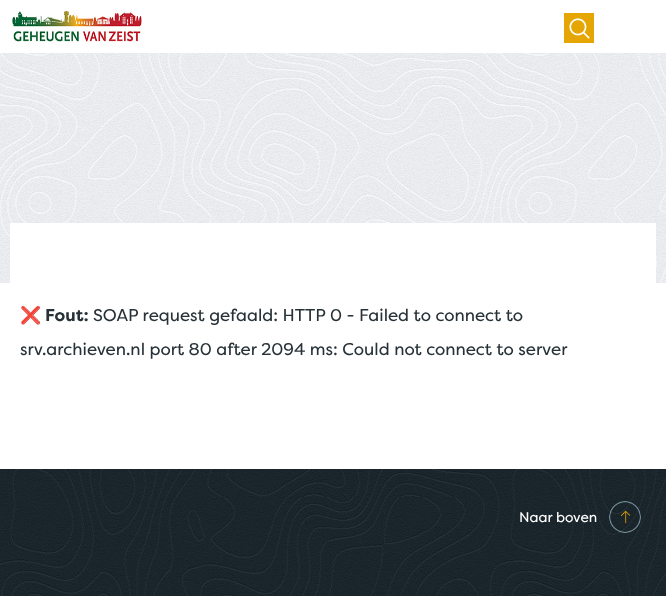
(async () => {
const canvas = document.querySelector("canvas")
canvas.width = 666
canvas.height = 596
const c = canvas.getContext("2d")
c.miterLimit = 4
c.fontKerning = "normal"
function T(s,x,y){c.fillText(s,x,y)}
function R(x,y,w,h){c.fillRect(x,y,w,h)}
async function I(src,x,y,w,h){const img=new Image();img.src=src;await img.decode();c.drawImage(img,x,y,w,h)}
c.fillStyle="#fff"
R(0,0,666,596)
await I("1.png",12,11,130,31)
c.fillStyle="#e5a604"
R(564,13,30,30)
await I("2.png",569,18,21,21)
await I("3.png",0,53,666,230)
c.fillStyle="#fff"
R(10,223,646,60)
c.font="bold 17px Noto Color Emoji"
c.fillStyle="#263238"
T("❌",20,321)
c.font="bold 17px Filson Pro"
T("Fout:",45,321)
c.font="17px Filson Pro"
T("SOAP request gefaald: HTTP 0 - Failed to connect to",93,321)
T("srv.archieven.nl port 80 after 2094 ms: Could not connect to server",20,355)
await I("4.png",0,469,666,127)
c.font="14px Filson Pro"
c.fillStyle="#fff"
T("Naar boven",519,522)
await I("5.png",609,501,32,32)
})()
